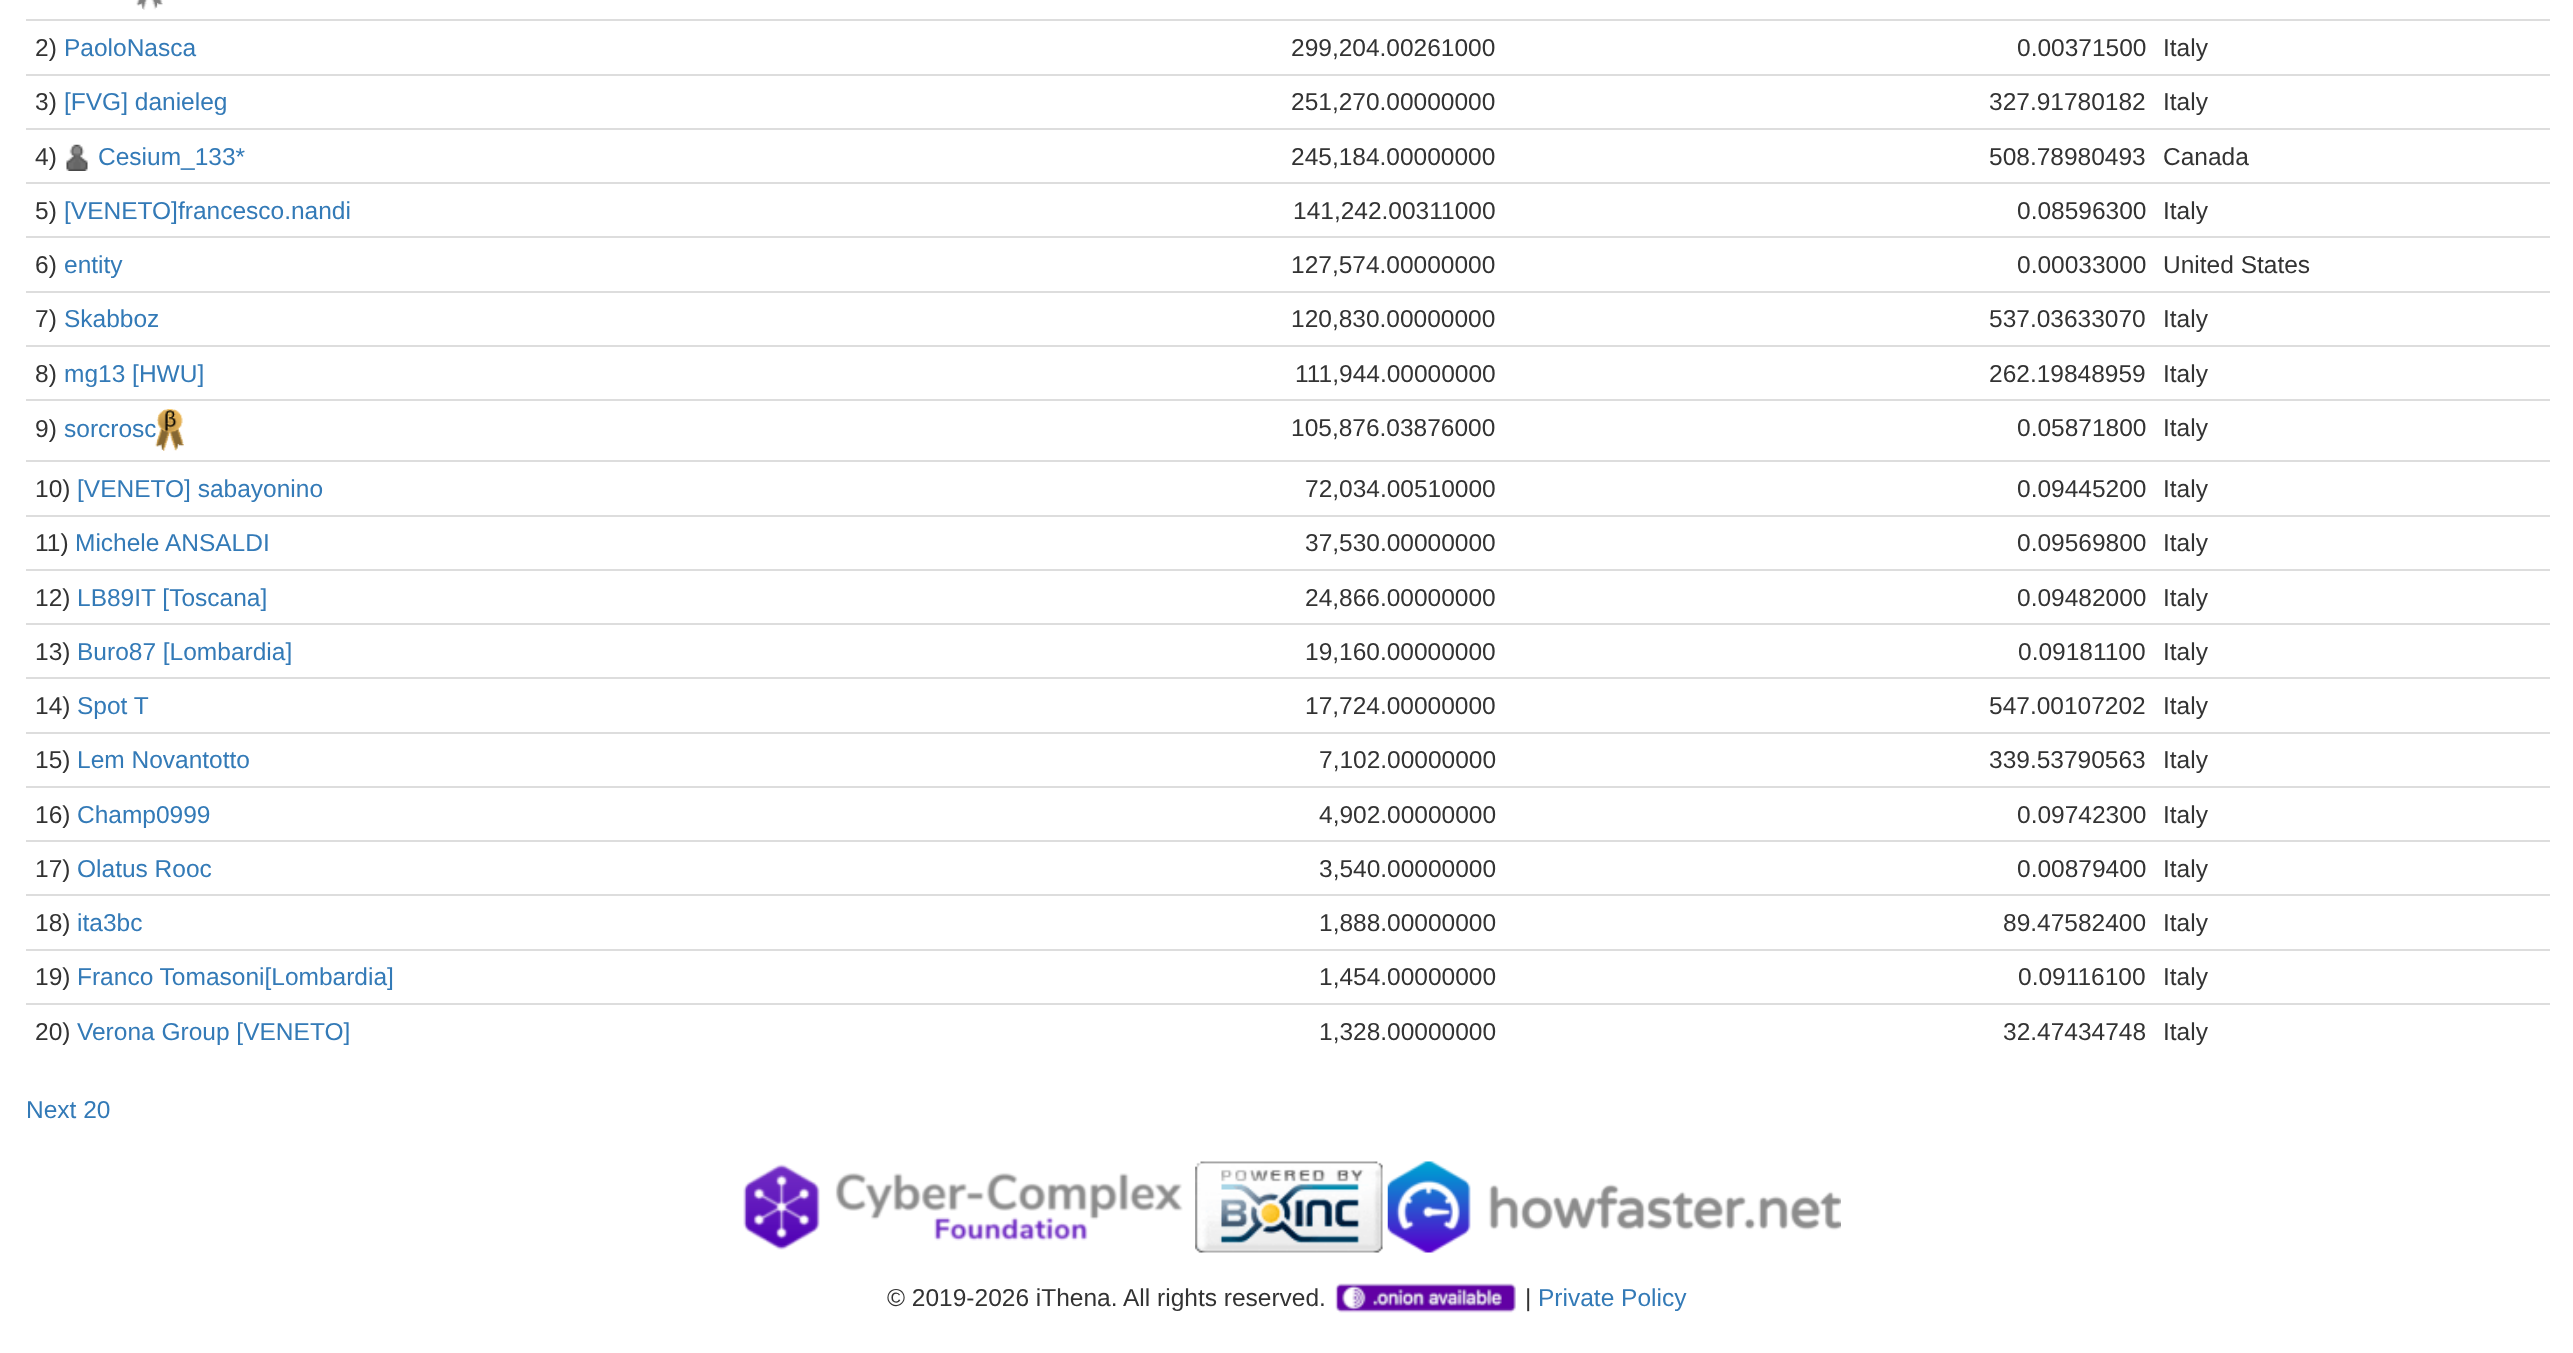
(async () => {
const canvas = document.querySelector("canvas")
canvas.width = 2573
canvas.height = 1353
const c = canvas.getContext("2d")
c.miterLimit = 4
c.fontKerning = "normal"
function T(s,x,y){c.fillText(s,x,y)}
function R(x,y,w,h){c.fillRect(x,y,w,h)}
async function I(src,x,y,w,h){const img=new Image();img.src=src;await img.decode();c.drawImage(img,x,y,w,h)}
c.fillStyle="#fff"
R(0,0,2573,1353)
await I("1.png",136,0,27,10)
c.font="24.5px Liberation Sans"
c.fillStyle="#333"
T("2)",35,56)
c.fillStyle="#337ab7"
T("PaoloNasca",64,56)
c.fillStyle="#333"
T("299,204.00261000",1291,56)
T("0.00371500",2017,56)
c.fillStyle="#ddd"
R(26,19,2524,2)
c.fillStyle="#333"
T("Italy",2163,56)
T("3)",35,110)
c.fillStyle="#337ab7"
T("[FVG] danieleg",64,110)
c.fillStyle="#333"
T("251,270.00000000",1291,110)
T("327.91780182",1989,110)
c.fillStyle="#ddd"
R(26,74,2524,2)
c.fillStyle="#333"
T("Italy",2163,110)
T("4)",35,165)
await I("2.png",66,144,22,27)
c.fillStyle="#337ab7"
T("Cesium_133*",98,165)
c.fillStyle="#333"
T("245,184.00000000",1291,165)
T("508.78980493",1989,165)
c.fillStyle="#ddd"
R(26,128,2524,2)
c.fillStyle="#333"
T("Canada",2163,165)
T("5)",35,219)
c.fillStyle="#337ab7"
T("[VENETO]francesco.nandi",64,219)
c.fillStyle="#333"
T("141,242.00311000",1293,219)
T("0.08596300",2017,219)
c.fillStyle="#ddd"
R(26,182,2524,2)
c.fillStyle="#333"
T("Italy",2163,219)
T("6)",35,273)
c.fillStyle="#337ab7"
T("entity",64,273)
c.fillStyle="#333"
T("127,574.00000000",1291,273)
T("0.00033000",2017,273)
c.fillStyle="#ddd"
R(26,236,2524,2)
c.fillStyle="#333"
T("United States",2163,273)
T("7)",35,327)
c.fillStyle="#337ab7"
T("Skabboz",64,327)
c.fillStyle="#333"
T("120,830.00000000",1291,327)
T("537.03633070",1989,327)
c.fillStyle="#ddd"
R(26,291,2524,2)
c.fillStyle="#333"
T("Italy",2163,327)
T("8)",35,382)
c.fillStyle="#337ab7"
T("mg13 [HWU]",64,382)
c.fillStyle="#333"
T("111,944.00000000",1295,382)
T("262.19848959",1989,382)
c.fillStyle="#ddd"
R(26,345,2524,2)
c.fillStyle="#333"
T("Italy",2163,382)
T("9)",35,437)
c.fillStyle="#337ab7"
T("sorcrosc",64,437)
await I("3.png",155,409,29,42)
c.fillStyle="#333"
T("105,876.03876000",1291,436)
T("0.05871800",2017,436)
c.fillStyle="#ddd"
R(26,399,2524,2)
c.fillStyle="#333"
T("Italy",2163,436)
T("10)",35,497)
c.fillStyle="#337ab7"
T("[VENETO] sabayonino",77,497)
c.fillStyle="#333"
T("72,034.00510000",1305,497)
T("0.09445200",2017,497)
c.fillStyle="#ddd"
R(26,460,2524,2)
c.fillStyle="#333"
T("Italy",2163,497)
T("11)",35,551)
c.fillStyle="#337ab7"
T("Michele ANSALDI",75,551)
c.fillStyle="#333"
T("37,530.00000000",1305,551)
T("0.09569800",2017,551)
c.fillStyle="#ddd"
R(26,515,2524,2)
c.fillStyle="#333"
T("Italy",2163,551)
T("12)",35,606)
c.fillStyle="#337ab7"
T("LB89IT [Toscana]",77,606)
c.fillStyle="#333"
T("24,866.00000000",1305,606)
T("0.09482000",2017,606)
c.fillStyle="#ddd"
R(26,569,2524,2)
c.fillStyle="#333"
T("Italy",2163,606)
T("13)",35,660)
c.fillStyle="#337ab7"
T("Buro87 [Lombardia]",77,660)
c.fillStyle="#333"
T("19,160.00000000",1305,660)
T("0.09181100",2018,660)
c.fillStyle="#ddd"
R(26,623,2524,2)
c.fillStyle="#333"
T("Italy",2163,660)
T("14)",35,714)
c.fillStyle="#337ab7"
T("Spot T",77,714)
c.fillStyle="#333"
T("17,724.00000000",1305,714)
T("547.00107202",1989,714)
c.fillStyle="#ddd"
R(26,677,2524,2)
c.fillStyle="#333"
T("Italy",2163,714)
T("15)",35,768)
c.fillStyle="#337ab7"
T("Lem Novantotto",77,768)
c.fillStyle="#333"
T("7,102.00000000",1319,768)
T("339.53790563",1989,768)
c.fillStyle="#ddd"
R(26,732,2524,2)
c.fillStyle="#333"
T("Italy",2163,768)
T("16)",35,823)
c.fillStyle="#337ab7"
T("Champ0999",77,823)
c.fillStyle="#333"
T("4,902.00000000",1319,823)
T("0.09742300",2017,823)
c.fillStyle="#ddd"
R(26,786,2524,2)
c.fillStyle="#333"
T("Italy",2163,823)
T("17)",35,877)
c.fillStyle="#337ab7"
T("Olatus Rooc",77,877)
c.fillStyle="#333"
T("3,540.00000000",1319,877)
T("0.00879400",2017,877)
c.fillStyle="#ddd"
R(26,840,2524,2)
c.fillStyle="#333"
T("Italy",2163,877)
T("18)",35,931)
c.fillStyle="#337ab7"
T("ita3bc",77,931)
c.fillStyle="#333"
T("1,888.00000000",1319,931)
T("89.47582400",2003,931)
c.fillStyle="#ddd"
R(26,894,2524,2)
c.fillStyle="#333"
T("Italy",2163,931)
T("19)",35,985)
c.fillStyle="#337ab7"
T("Franco Tomasoni[Lombardia]",77,985)
c.fillStyle="#333"
T("1,454.00000000",1319,985)
T("0.09116100",2018,985)
c.fillStyle="#ddd"
R(26,949,2524,2)
c.fillStyle="#333"
T("Italy",2163,985)
T("20)",35,1040)
c.fillStyle="#337ab7"
T("Verona Group [VENETO]",77,1040)
c.fillStyle="#333"
T("1,328.00000000",1319,1040)
T("32.47434748",2003,1040)
c.fillStyle="#ddd"
R(26,1003,2524,2)
c.fillStyle="#333"
T("Italy",2163,1040)
c.fillStyle="#337ab7"
T("Next 20",26,1118)
await I("4.png",743,1164,440,86)
await I("5.png",1195,1161,188,92)
await I("6.png",1387,1161,454,92)
c.fillStyle="#333"
T("© 2019-2026 iThena. All rights reserved.",887,1306)
await I("7.png",1335,1283,181,30)
T("|",1525,1306)
c.fillStyle="#337ab7"
T("Private Policy",1538,1306)
})()
